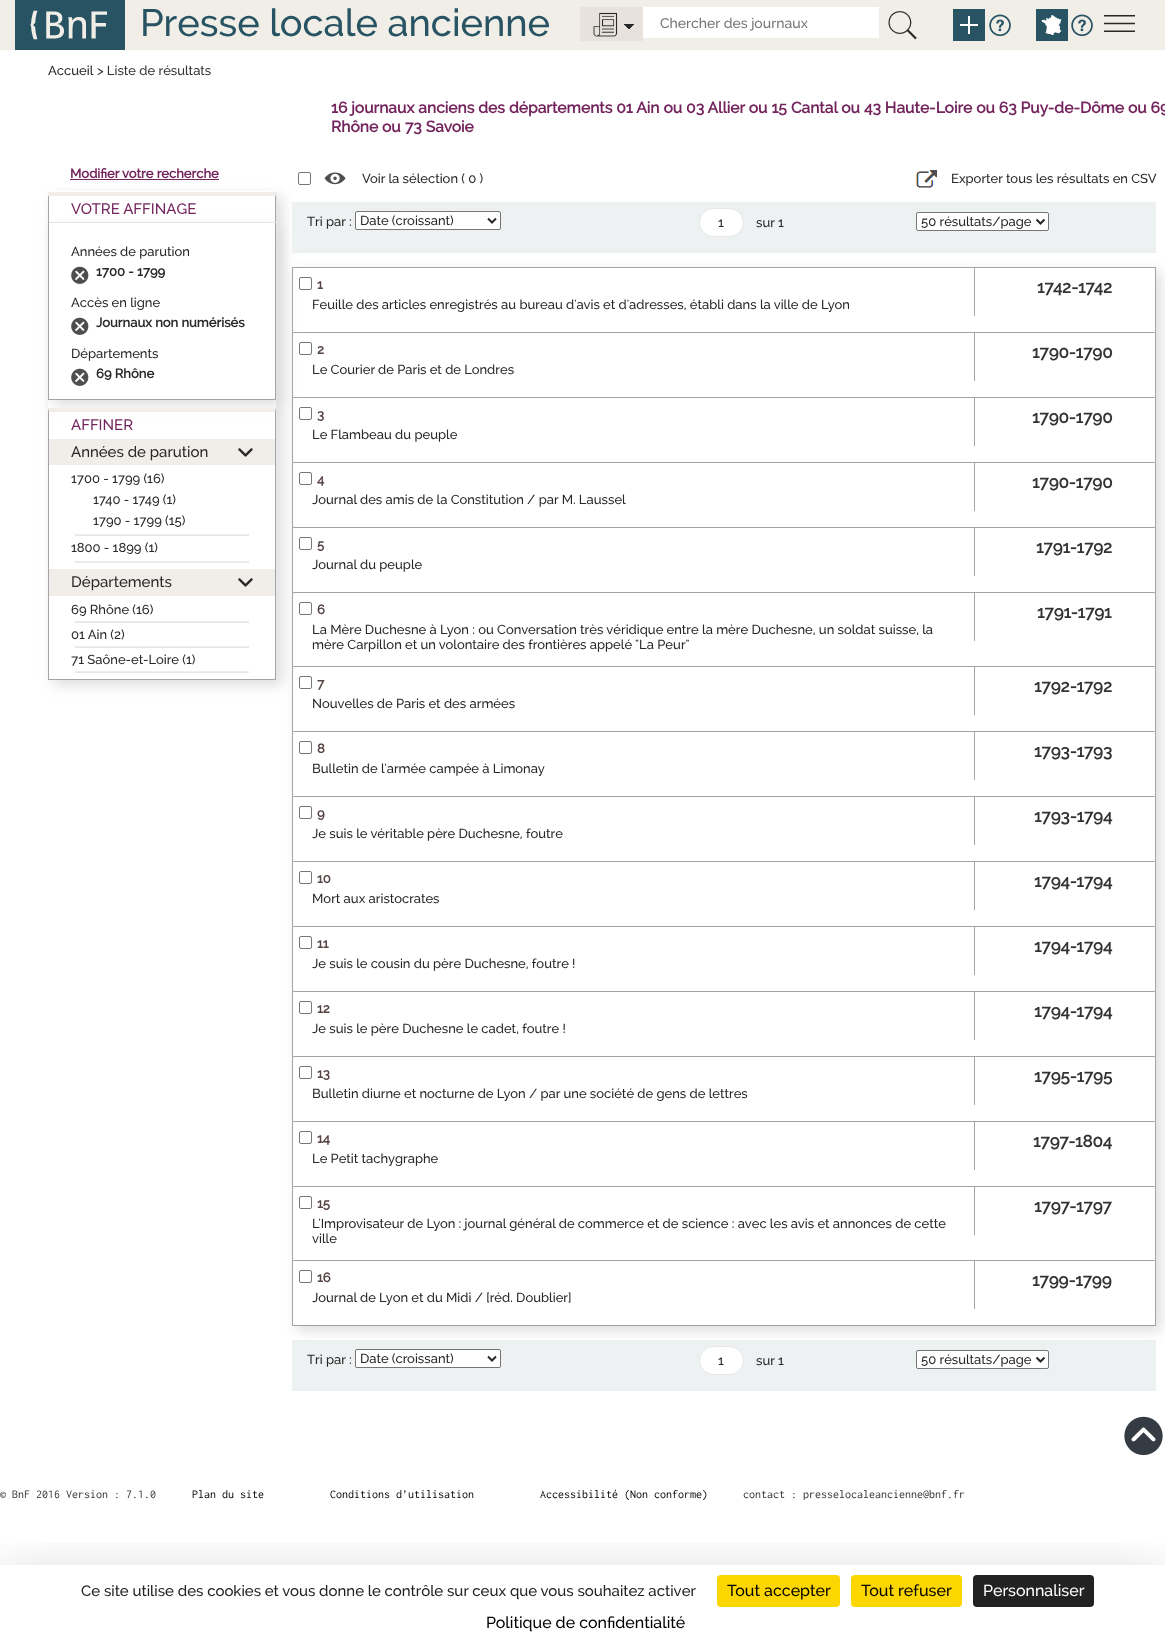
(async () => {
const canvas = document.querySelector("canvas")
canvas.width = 1165
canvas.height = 1649
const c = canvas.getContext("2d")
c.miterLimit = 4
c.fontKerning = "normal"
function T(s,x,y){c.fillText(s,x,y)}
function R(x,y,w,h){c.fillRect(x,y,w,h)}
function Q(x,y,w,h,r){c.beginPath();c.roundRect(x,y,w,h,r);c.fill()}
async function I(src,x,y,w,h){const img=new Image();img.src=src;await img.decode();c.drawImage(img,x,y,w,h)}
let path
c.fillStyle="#fff"
R(0,0,1165,1649)
c.fillStyle="#f1eee8"
R(0,0,1165,50)
await I("1.png",15,0,110,50)
c.font="500 38px Raleway"
c.fillStyle="#275363"
T("Presse locale ancienne",140,36)
await I("2.png",580,7,63,34)
c.fillStyle="#fff"
R(643,7,236,31)
c.font="500 14px Raleway"
c.fillStyle="#757575"
T("Chercher des journaux",660,28)
await I("3.png",888,11,29,29)
await I("4.png",953,9,32,32)
await I("5.png",989,14,22,23)
await I("6.png",1036,9,32,32)
await I("5.png",1071,14,22,23)
await I("7.png",1104,15,31,17)
c.font="500 13px Raleway"
c.fillStyle="#282828"
T("Accueil",48,75)
c.fillStyle="#333"
T("> Liste de résultats",97,75)
c.font="bold 15.6px Raleway"
c.fillStyle="#73245c"
T("16 journaux anciens des départements 01 Ain ou 03 Allier ou 15 Cantal ou 43 Haute-Loire ou 63 Puy-de-Dôme ou 69",331,113)
T("Rhône ou 73 Savoie",331,132)
c.font="bold 13px Raleway"
T("Modifier votre recherche",70,178)
R(70,179,149,1)
c.save()
path = new Path2D("M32 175h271v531h-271zm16 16h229v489h-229z")
c.clip(path,"evenodd")
c.fillStyle="#ddd"
c.filter="blur(6.5px)"
c.beginPath()
c.rect(53,196,229,489)
c.fill()
c.filter="none"
c.restore()
c.fillStyle="#e7e6e8"
R(276,191,1,489)
c.fillStyle="#f1eee9"
R(48,192,228,4)
c.fillStyle="#a4a4a8"
R(275,196,1,27)
c.fillStyle="#e7e6e8"
R(48,222,228,1)
c.fillStyle="#a4a4a8"
R(48,196,1,27)
c.save()
path = new Path2D("M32 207h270v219h-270zm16 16h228v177h-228z")
c.clip(path,"evenodd")
c.fillStyle="#ddd"
c.filter="blur(6.5px)"
c.beginPath()
c.rect(53,228,228,177)
c.fill()
c.filter="none"
c.restore()
c.font="500 15px Raleway"
c.fillStyle="#73245c"
T("VOTRE AFFINAGE",71,214)
c.fillStyle="#a4a4a8"
R(275,223,1,177)
R(48,399,228,1)
R(48,223,1,177)
c.font="500 13px Raleway"
c.fillStyle="#282828"
T("Années de parution",71,256)
await I("8.png",71,266,18,18)
c.font="bold 13px Raleway"
T("1700 - 1799",96,276)
c.font="500 13px Raleway"
T("Accès en ligne",71,307)
await I("8.png",71,317,18,18)
c.font="bold 13px Raleway"
T("Journaux non numérisés",96,327)
c.font="500 13px Raleway"
T("Départements",71,358)
await I("8.png",71,368,18,18)
c.font="bold 13px Raleway"
T("69 Rhône",96,378)
c.fillStyle="#fff"
R(55,412,220,2)
c.fillStyle="#f1eee9"
path = new Path2D("M48 408h228l-1 4h-226z")
c.fill(path)
c.fillStyle="#a4a4a8"
path = new Path2D("M276 408v272l-1-1v-267z")
c.fill(path)
R(48,679,228,1)
path = new Path2D("M48 680v-272l1 4v267z")
c.fill(path)
c.font="500 15px Raleway"
c.fillStyle="#73245c"
T("AFFINER",71,430)
c.fillStyle="#f1eee9"
R(49,439,226,26)
c.fillStyle="#282828"
T("Années de parution",71,457)
await I("9.png",238,448,15,9)
c.font="500 13px Raleway"
T("1700 - 1799 (16)",71,483)
T("1740 - 1749 (1)",93,504)
T("1790 - 1799 (15)",93,525)
c.fillStyle="#e7e6e8"
R(75,535,174,1)
c.fillStyle="#eee"
R(75,534,174,1)
c.fillStyle="#282828"
T("1800 - 1899 (1)",71,552)
c.fillStyle="#e7e6e8"
R(75,562,174,1)
c.fillStyle="#eee"
R(75,561,174,1)
c.fillStyle="#f1eee9"
R(49,569,226,27)
c.font="500 15px Raleway"
c.fillStyle="#282828"
T("Départements",71,587)
await I("9.png",238,578,15,9)
c.font="500 13px Raleway"
T("69 Rhône (16)",71,614)
c.fillStyle="#e7e6e8"
R(75,622,174,1)
c.fillStyle="#eee"
R(75,621,174,1)
c.fillStyle="#282828"
T("01 Ain (2)",71,639)
c.fillStyle="#e7e6e8"
R(75,647,174,1)
c.fillStyle="#eee"
R(75,646,174,1)
c.fillStyle="#282828"
T("71 Saône-et-Loire (1)",71,664)
c.fillStyle="#e7e6e8"
R(75,672,174,1)
c.fillStyle="#eee"
R(75,671,174,1)
c.beginPath()
c.roundRect(298.5,172.5,12,12,1.5)
c.strokeStyle="#767676"
c.stroke()
await I("10.png",324,172,22,13)
c.fillStyle="#282828"
T("Voir la sélection ( 0 )",362,183)
await I("11.png",916,170,21,18)
T("Exporter tous les résultats en CSV",951,183)
c.fillStyle="#edf1f2"
R(292,202,864,51)
c.fillStyle="#282828"
T("Tri par :",307,226)
c.fillStyle="#fff"
c.beginPath()
c.roundRect(355.5,211.5,145,18,1.5)
c.fill()
c.stroke()
path = new Path2D("M488 218.5l4 4l4-4")
c.strokeStyle="#282828"
c.lineWidth=2
c.stroke(path)
c.fillStyle="#282828"
T("Date (croissant)",360,225)
c.fillStyle="#fff"
c.beginPath()
c.roundRect(699.5,208.5,44,28,14)
c.fill()
c.strokeStyle="#e7e6e8"
c.lineWidth=1
c.stroke()
c.fillStyle="#282828"
T("1",718,227)
T("sur 1",756,227)
c.fillStyle="#fff"
c.beginPath()
c.roundRect(916.5,212.5,132,18,1.5)
c.fill()
c.strokeStyle="#767676"
c.stroke()
path = new Path2D("M1036.5 219.5l4 4l4-4")
c.strokeStyle="#282828"
c.lineWidth=2
c.stroke(path)
c.fillStyle="#282828"
T("50 résultats/page",921,226)
c.save()
path = new Path2D("M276 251h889v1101h-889zm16 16h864v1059h-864z")
c.clip(path,"evenodd")
c.fillStyle="#ddd"
c.filter="blur(6.5px)"
c.beginPath()
c.rect(297,272,864,1059)
c.fill()
c.filter="none"
c.restore()
c.strokeStyle="#a4a4a8"
c.lineWidth=1
c.strokeRect(292.5,267.5,863,1058)
c.beginPath()
c.roundRect(299.5,277.5,12,12,1.5)
c.strokeStyle="#767676"
c.stroke()
c.font="bold 13px Raleway"
c.fillStyle="#564343"
T("1",317,289)
c.font="500 13px Raleway"
c.fillStyle="#282828"
T("Feuille des articles enregistrés au bureau d'avis et d'adresses, établi dans la ville de Lyon",312,309)
c.fillStyle="#a4a4a8"
R(974,268,1,48)
c.font="bold 16.75px Raleway"
c.fillStyle="#333"
T("1742-1742",1037,293)
c.fillStyle="#a4a4a8"
R(293,332,862,1)
c.beginPath()
c.roundRect(299.5,342.5,12,12,1.5)
c.stroke()
c.font="bold 13px Raleway"
c.fillStyle="#564343"
T("2",317,354)
c.font="500 13px Raleway"
c.fillStyle="#282828"
T("Le Courier de Paris et de Londres",312,374)
c.fillStyle="#a4a4a8"
R(974,333,1,48)
c.font="bold 16.75px Raleway"
c.fillStyle="#333"
T("1790-1790",1032,358)
c.fillStyle="#a4a4a8"
R(293,397,862,1)
c.beginPath()
c.roundRect(299.5,407.5,12,12,1.5)
c.stroke()
c.font="bold 13px Raleway"
c.fillStyle="#564343"
T("3",317,419)
c.font="500 13px Raleway"
c.fillStyle="#282828"
T("Le Flambeau du peuple",312,439)
c.fillStyle="#a4a4a8"
R(974,398,1,48)
c.font="bold 16.75px Raleway"
c.fillStyle="#333"
T("1790-1790",1032,423)
c.fillStyle="#a4a4a8"
R(293,462,862,1)
c.beginPath()
c.roundRect(299.5,472.5,12,12,1.5)
c.stroke()
c.font="bold 13px Raleway"
c.fillStyle="#564343"
T("4",317,484)
c.font="500 13px Raleway"
c.fillStyle="#282828"
T("Journal des amis de la Constitution / par M. Laussel",312,504)
c.fillStyle="#a4a4a8"
R(974,463,1,48)
c.font="bold 16.75px Raleway"
c.fillStyle="#333"
T("1790-1790",1032,488)
c.fillStyle="#a4a4a8"
R(293,527,862,1)
c.beginPath()
c.roundRect(299.5,537.5,12,12,1.5)
c.stroke()
c.font="bold 13px Raleway"
c.fillStyle="#564343"
T("5",317,549)
c.font="500 13px Raleway"
c.fillStyle="#282828"
T("Journal du peuple",312,569)
c.fillStyle="#a4a4a8"
R(974,528,1,48)
c.font="bold 16.75px Raleway"
c.fillStyle="#333"
T("1791-1792",1036,553)
c.fillStyle="#a4a4a8"
R(293,592,862,1)
c.beginPath()
c.roundRect(299.5,602.5,12,12,1.5)
c.stroke()
c.font="bold 13px Raleway"
c.fillStyle="#564343"
T("6",317,614)
c.font="500 13px Raleway"
c.fillStyle="#282828"
T("La Mère Duchesne à Lyon : ou Conversation très véridique entre la mère Duchesne, un soldat suisse, la",312,634)
T("mère Carpillon et un volontaire des frontières appelé \"La Peur\"",312,649)
c.fillStyle="#a4a4a8"
R(974,593,1,48)
c.font="bold 16.75px Raleway"
c.fillStyle="#333"
T("1791-1791",1037,618)
c.fillStyle="#a4a4a8"
R(293,666,862,1)
c.beginPath()
c.roundRect(299.5,676.5,12,12,1.5)
c.stroke()
c.font="bold 13px Raleway"
c.fillStyle="#564343"
T("7",317,688)
c.font="500 13px Raleway"
c.fillStyle="#282828"
T("Nouvelles de Paris et des armées",312,708)
c.fillStyle="#a4a4a8"
R(974,667,1,48)
c.font="bold 16.75px Raleway"
c.fillStyle="#333"
T("1792-1792",1034,692)
c.fillStyle="#a4a4a8"
R(293,731,862,1)
c.beginPath()
c.roundRect(299.5,741.5,12,12,1.5)
c.stroke()
c.font="bold 13px Raleway"
c.fillStyle="#564343"
T("8",317,753)
c.font="500 13px Raleway"
c.fillStyle="#282828"
T("Bulletin de l'armée campée à Limonay",312,773)
c.fillStyle="#a4a4a8"
R(974,732,1,48)
c.font="bold 16.75px Raleway"
c.fillStyle="#333"
T("1793-1793",1034,757)
c.fillStyle="#a4a4a8"
R(293,796,862,1)
c.beginPath()
c.roundRect(299.5,806.5,12,12,1.5)
c.stroke()
c.font="bold 13px Raleway"
c.fillStyle="#564343"
T("9",317,818)
c.font="500 13px Raleway"
c.fillStyle="#282828"
T("Je suis le véritable père Duchesne, foutre",312,838)
c.fillStyle="#a4a4a8"
R(974,797,1,48)
c.font="bold 16.75px Raleway"
c.fillStyle="#333"
T("1793-1794",1034,822)
c.fillStyle="#a4a4a8"
R(293,861,862,1)
c.beginPath()
c.roundRect(299.5,871.5,12,12,1.5)
c.stroke()
c.font="bold 13px Raleway"
c.fillStyle="#564343"
T("10",317,883)
c.font="500 13px Raleway"
c.fillStyle="#282828"
T("Mort aux aristocrates",312,903)
c.fillStyle="#a4a4a8"
R(974,862,1,48)
c.font="bold 16.75px Raleway"
c.fillStyle="#333"
T("1794-1794",1034,887)
c.fillStyle="#a4a4a8"
R(293,926,862,1)
c.beginPath()
c.roundRect(299.5,936.5,12,12,1.5)
c.stroke()
c.font="bold 13px Raleway"
c.fillStyle="#564343"
T("11",317,948)
c.font="500 13px Raleway"
c.fillStyle="#282828"
T("Je suis le cousin du père Duchesne, foutre !",312,968)
c.fillStyle="#a4a4a8"
R(974,927,1,48)
c.font="bold 16.75px Raleway"
c.fillStyle="#333"
T("1794-1794",1034,952)
c.fillStyle="#a4a4a8"
R(293,991,862,1)
c.beginPath()
c.roundRect(299.5,1001.5,12,12,1.5)
c.stroke()
c.font="bold 13px Raleway"
c.fillStyle="#564343"
T("12",317,1013)
c.font="500 13px Raleway"
c.fillStyle="#282828"
T("Je suis le père Duchesne le cadet, foutre !",312,1033)
c.fillStyle="#a4a4a8"
R(974,992,1,48)
c.font="bold 16.75px Raleway"
c.fillStyle="#333"
T("1794-1794",1034,1017)
c.fillStyle="#a4a4a8"
R(293,1056,862,1)
c.beginPath()
c.roundRect(299.5,1066.5,12,12,1.5)
c.stroke()
c.font="bold 13px Raleway"
c.fillStyle="#564343"
T("13",317,1078)
c.font="500 13px Raleway"
c.fillStyle="#282828"
T("Bulletin diurne et nocturne de Lyon / par une société de gens de lettres",312,1098)
c.fillStyle="#a4a4a8"
R(974,1057,1,48)
c.font="bold 16.75px Raleway"
c.fillStyle="#333"
T("1795-1795",1034,1082)
c.fillStyle="#a4a4a8"
R(293,1121,862,1)
c.beginPath()
c.roundRect(299.5,1131.5,12,12,1.5)
c.stroke()
c.font="bold 13px Raleway"
c.fillStyle="#564343"
T("14",317,1143)
c.font="500 13px Raleway"
c.fillStyle="#282828"
T("Le Petit tachygraphe",312,1163)
c.fillStyle="#a4a4a8"
R(974,1122,1,48)
c.font="bold 16.75px Raleway"
c.fillStyle="#333"
T("1797-1804",1033,1147)
c.fillStyle="#a4a4a8"
R(293,1186,862,1)
c.beginPath()
c.roundRect(299.5,1196.5,12,12,1.5)
c.stroke()
c.font="bold 13px Raleway"
c.fillStyle="#564343"
T("15",317,1208)
c.font="500 13px Raleway"
c.fillStyle="#282828"
T("L'Improvisateur de Lyon : journal général de commerce et de science : avec les avis et annonces de cette",312,1228)
T("ville",312,1243)
c.fillStyle="#a4a4a8"
R(974,1187,1,48)
c.font="bold 16.75px Raleway"
c.fillStyle="#333"
T("1797-1797",1034,1212)
c.fillStyle="#a4a4a8"
R(293,1260,862,1)
c.beginPath()
c.roundRect(299.5,1270.5,12,12,1.5)
c.stroke()
c.font="bold 13px Raleway"
c.fillStyle="#564343"
T("16",317,1282)
c.font="500 13px Raleway"
c.fillStyle="#282828"
T("Journal de Lyon et du Midi / [réd. Doublier]",312,1302)
c.fillStyle="#a4a4a8"
R(974,1261,1,48)
c.font="bold 16.75px Raleway"
c.fillStyle="#333"
T("1799-1799",1032,1286)
c.fillStyle="#edf1f2"
R(292,1340,864,51)
c.font="500 13px Raleway"
c.fillStyle="#282828"
T("Tri par :",307,1364)
c.fillStyle="#fff"
c.beginPath()
c.roundRect(355.5,1349.5,145,18,1.5)
c.fill()
c.stroke()
path = new Path2D("M488 1356.5l4 4l4-4")
c.strokeStyle="#282828"
c.lineWidth=2
c.stroke(path)
c.fillStyle="#282828"
T("Date (croissant)",360,1363)
c.fillStyle="#fff"
c.beginPath()
c.roundRect(699.5,1346.5,44,28,14)
c.fill()
c.strokeStyle="#e7e6e8"
c.lineWidth=1
c.stroke()
c.fillStyle="#282828"
T("1",718,1365)
T("sur 1",756,1365)
c.fillStyle="#fff"
c.beginPath()
c.roundRect(916.5,1350.5,132,18,1.5)
c.fill()
c.strokeStyle="#767676"
c.stroke()
path = new Path2D("M1036.5 1357.5l4 4l4-4")
c.strokeStyle="#282828"
c.lineWidth=2
c.stroke(path)
c.fillStyle="#282828"
T("50 résultats/page",921,1364)
await I("12.png",1124,1416,39,40)
c.font="12px Inconsolata"
c.fillStyle="#333"
T("© BnF 2016 Version : 7.1.0",0,1498)
c.fillStyle="#000"
T("Plan du site",192,1498)
T("Conditions d’utilisation",330,1498)
T("Accessibilité (Non conforme)",540,1498)
c.fillStyle="#333"
T("contact : presselocaleancienne@bnf.fr",743,1498)
c.save()
c.beginPath()
c.rect(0,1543,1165,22)
c.clip()
c.fillStyle="#00000040"
c.filter="blur(30px)"
c.beginPath()
c.rect(0,1585,1165,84)
c.fill()
c.filter="none"
c.restore()
c.font="500 15px Raleway"
c.fillStyle="#222"
T("Ce site utilise des cookies et vous donne le contrôle sur ceux que vous souhaitez activer",81,1596)
c.fillStyle="#fbd600"
Q(717,1575,123,32,4)
c.font="500 16px Raleway"
c.fillStyle="#000"
T("Tout accepter",727,1596)
c.fillStyle="#fbd600"
Q(851,1575,111,32,4)
c.fillStyle="#000"
T("Tout refuser",861,1596)
c.fillStyle="#222"
Q(973,1575,121,32,4)
c.fillStyle="#fff"
T("Personnaliser",983,1596)
c.fillStyle="#000"
T("Politique de confidentialité",486,1628)
})()
